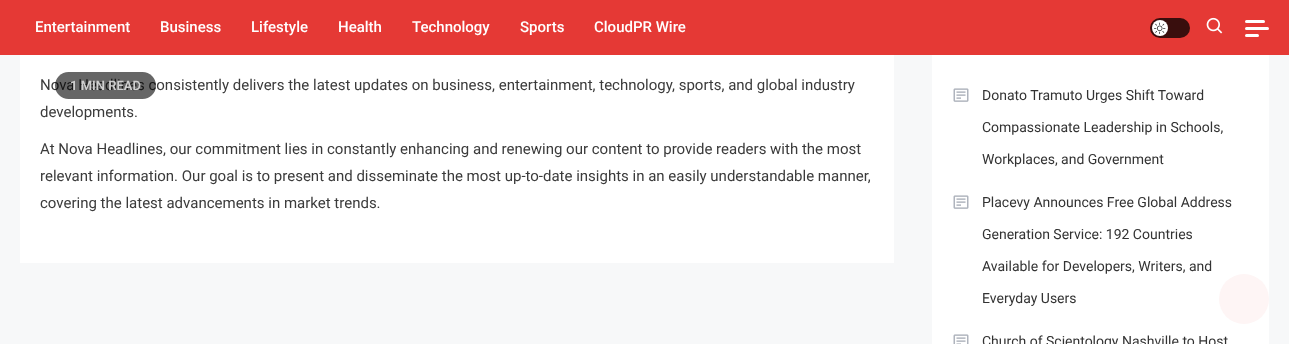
(async () => {
const canvas = document.querySelector("canvas")
canvas.width = 1289
canvas.height = 344
const c = canvas.getContext("2d")
c.miterLimit = 4
c.fontKerning = "normal"
function T(s,x,y){c.fillText(s,x,y)}
function R(x,y,w,h){c.fillRect(x,y,w,h)}
function Q(x,y,w,h,r){c.beginPath();c.roundRect(x,y,w,h,r);c.fill()}
async function I(src,x,y,w,h){const img=new Image();img.src=src;await img.decode();c.drawImage(img,x,y,w,h)}
c.fillStyle="#f7f8f9"
R(0,0,1289,344)
c.fillStyle="#e53935"
R(0,0,1289,55)
c.font="500 15px Roboto"
c.fillStyle="#fff"
T("Entertainment",35,32)
T("Business",160,32)
T("Lifestyle",251,32)
T("Health",338,32)
T("Technology",412,32)
T("Sports",520,32)
T("CloudPR Wire",594,32)
c.fillStyle="#390e0d"
Q(1150,18,40,20,10)
c.fillStyle="#fff"
c.beginPath()
c.arc(1160,28,8,0,7)
c.fill()
await I("1.png",1154,22,12,12)
await I("2.png",1206,17,17,17)
Q(1245,20,20,3,1.5)
Q(1245,27,24,3,1.5)
Q(1245,34,14,3,1.5)
R(20,55,874,208)
c.font="15px Roboto"
c.fillStyle="#3b3b3b"
T("Nova Headlines consistently delivers the latest updates on business, entertainment, technology, sports, and global industry",40,90)
T("developments.",40,117)
T("At Nova Headlines, our commitment lies in constantly enhancing and renewing our content to provide readers with the most",40,154)
T("relevant information. Our goal is to present and disseminate the most up-to-date insights in an easily understandable manner,",40,181)
T("covering the latest advancements in market trends.",40,208)
c.fillStyle="#00000099"
Q(55,72,101,27,13.5)
c.font="600 13px Roboto"
c.fillStyle="#cfcfcf"
T("1 MIN READ",70,90)
c.fillStyle="#fff"
R(932,55,337,289)
await I("3.png",953,88,16,14)
c.font="14px Roboto"
c.fillStyle="#333"
T("Donato Tramuto Urges Shift Toward",982,100)
T("Compassionate Leadership in Schools,",982,132)
T("Workplaces, and Government",982,164)
await I("3.png",953,195,16,14)
T("Placevy Announces Free Global Address",982,207)
T("Generation Service: 192 Countries",982,239)
T("Available for Developers, Writers, and",982,271)
T("Everyday Users",982,303)
await I("4.png",953,334,16,10)
T("Church of Scientology Nashville to Host",982,346)
c.fillStyle="#fef5f5"
c.beginPath()
c.arc(1244,299,25,0,7)
c.fill()
})()
